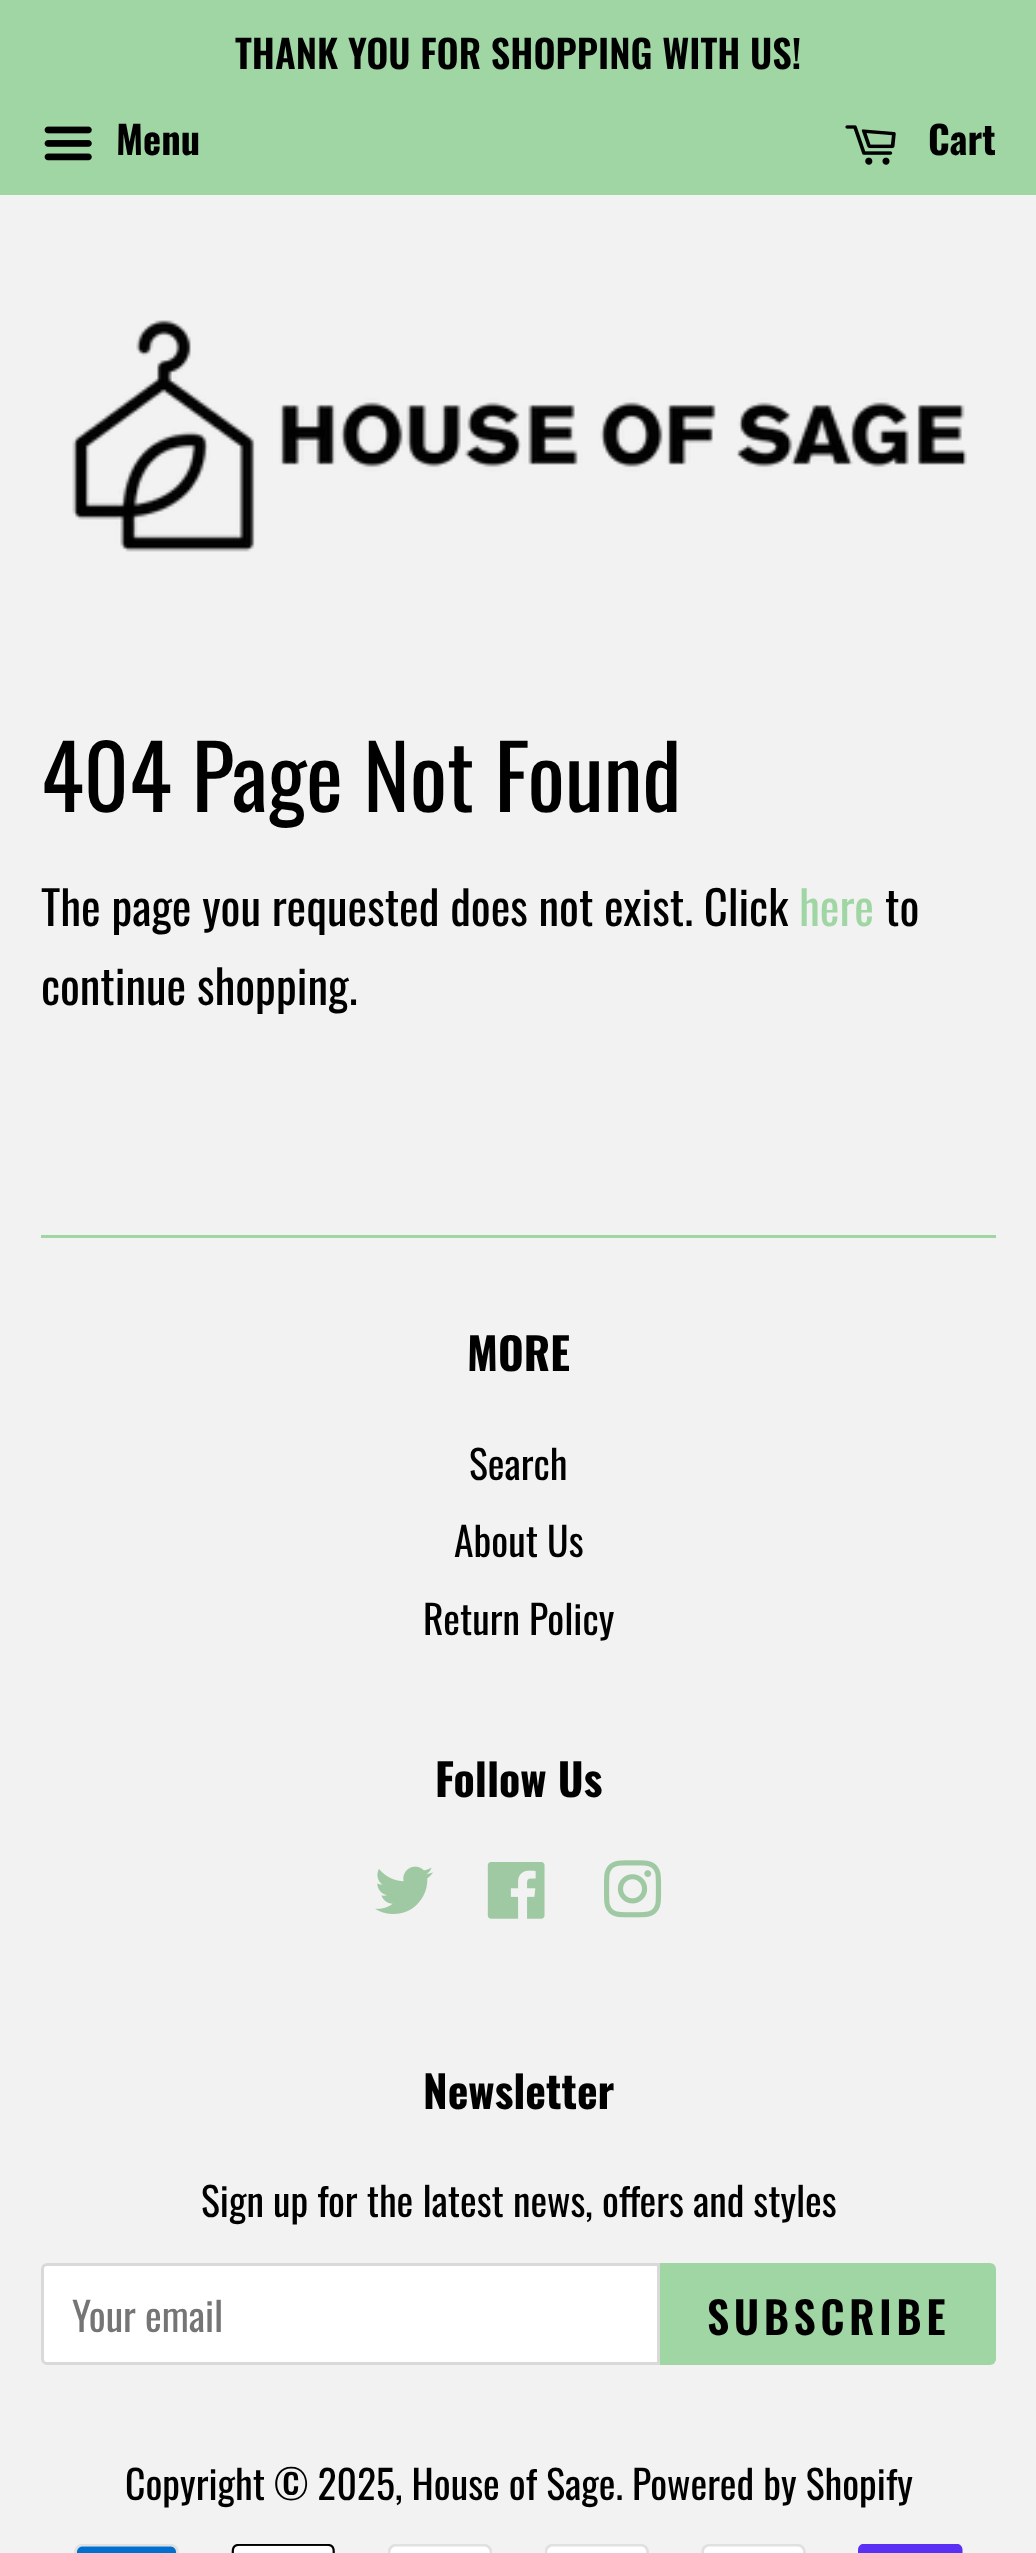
(async () => {
const canvas = document.querySelector("canvas")
canvas.width = 1036
canvas.height = 2553
const c = canvas.getContext("2d")
c.miterLimit = 4
c.fontKerning = "normal"
function T(s,x,y){c.fillText(s,x,y)}
function R(x,y,w,h){c.fillRect(x,y,w,h)}
async function I(src,x,y,w,h){const img=new Image();img.src=src;await img.decode();c.drawImage(img,x,y,w,h)}
c.fillStyle="#f2f2f2"
R(0,0,1036,2553)
c.fillStyle="#9fd6a4"
R(0,0,1036,195)
c.font="600 38.5px Oswald"
c.fillStyle="#000"
T("THANK YOU FOR SHOPPING WITH US!",235,69)
await I("1.png",44,126,48,35)
c.font="bold 38.5px Oswald"
T("Menu",116,155)
await I("2.png",845,125,51,40)
T("Cart",928,155)
await I("3.png",72,320,895,232)
c.font="88px Oswald"
T("404 Page Not Found",41,812)
c.font="46.75px Oswald"
T("The page you requested does not exist. Click",41,926)
c.fillStyle="#9fd6a4"
T("here",799,926)
c.fillStyle="#000"
T("to",885,926)
T("continue shopping.",41,1005)
c.fillStyle="#9fd6a4"
R(41,1235,955,3)
c.font="bold 44px Oswald"
c.fillStyle="#000"
T("MORE",467,1371)
c.font="39.75px Oswald"
T("Search",469,1480)
T("About Us",454,1557)
T("Return Policy",423,1635)
c.font="bold 44px Oswald"
T("Follow Us",435,1797)
await I("4.png",375,1866,58,48)
await I("5.png",487,1862,58,57)
await I("6.png",604,1860,58,58)
T("Newsletter",423,2109)
c.font="39.75px Oswald"
T("Sign up for the latest news, offers and styles",201,2217)
c.fillStyle="#fff"
c.beginPath()
c.roundRect(41,2263,619,102,[6,0,0,6])
c.fill()
c.beginPath()
c.roundRect(42.5,2264.5,616,99,[4.5,0,0,4.5])
c.strokeStyle="#00000026"
c.lineWidth=3
c.stroke()
c.fillStyle="#757575"
T("Your email",72,2332)
c.fillStyle="#9fd6a4"
c.beginPath()
c.roundRect(660,2263,336,102,[0,6,6,0])
c.fill()
c.letterSpacing="4.5px"
c.font="600 44px Oswald"
c.fillStyle="#000"
T("SUBSCRIBE",707,2335)
c.letterSpacing="0px"
c.font="39.75px Oswald"
T("Copyright © 2025, House of Sage. Powered by Shopify",125,2500)
await I("7.png",74,2544,105,9)
await I("8.png",231,2544,104,9)
await I("9.png",388,2544,104,9)
await I("10.png",545,2544,104,9)
await I("11.png",701,2544,105,9)
await I("12.png",858,2544,105,9)
})()
